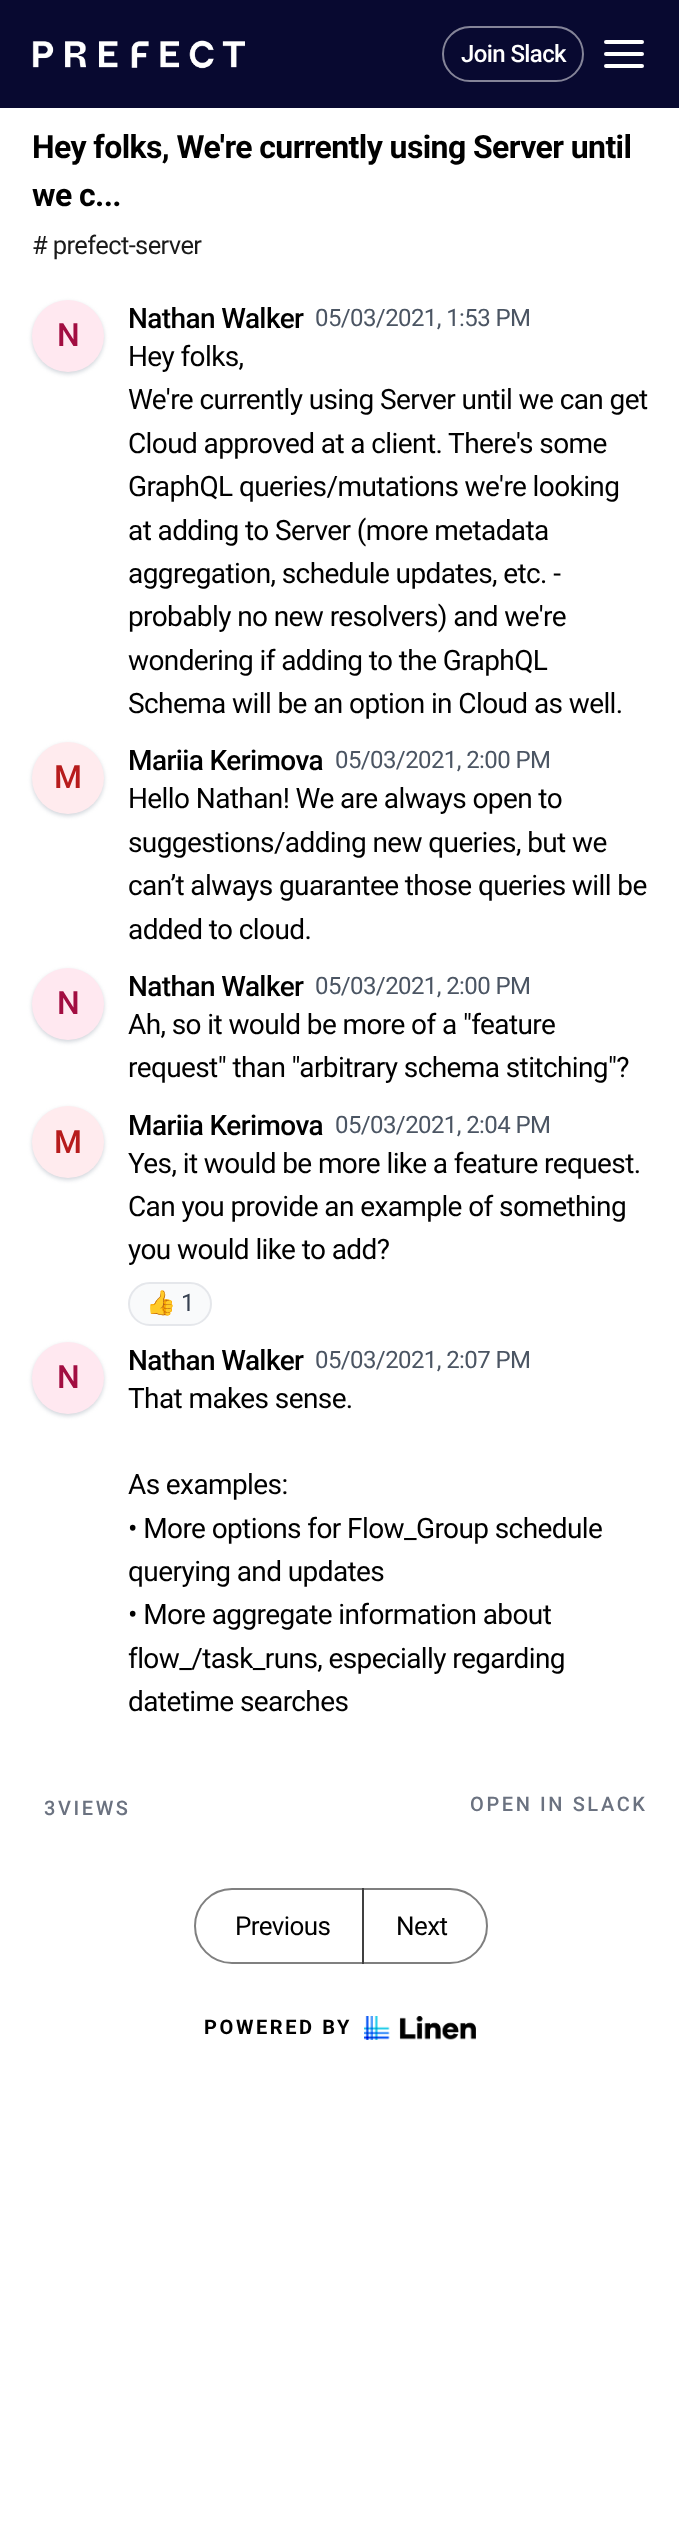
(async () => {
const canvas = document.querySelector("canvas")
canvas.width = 679
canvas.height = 2534
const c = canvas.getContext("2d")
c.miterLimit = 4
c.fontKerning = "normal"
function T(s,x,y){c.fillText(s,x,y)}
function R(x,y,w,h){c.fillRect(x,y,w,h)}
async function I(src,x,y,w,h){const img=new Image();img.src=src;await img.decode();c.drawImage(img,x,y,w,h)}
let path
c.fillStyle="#fff"
R(0,0,679,2534)
c.fillStyle="#080930"
R(0,0,679,108)
await I("1.png",32,40,213,29)
c.beginPath()
c.roundRect(443,27,140,54,27)
c.strokeStyle="#848498"
c.lineWidth=2
c.stroke()
c.letterSpacing="-0.6px"
c.font="500 24px Roboto"
c.fillStyle="#fff"
T("Join Slack",461,62)
path = new Path2D("M606 54h36m-36-12h36m-36 24h36")
c.strokeStyle="#fff"
c.lineWidth=4
c.lineCap="round"
c.lineJoin="round"
c.stroke(path)
c.font="bold 32px Roboto"
c.fillStyle="#000"
T("Hey folks, We're currently using Server until",32,158)
T("we c...",32,206)
c.font="25.5px Roboto"
c.fillStyle="#1a1a1a"
T("# prefect-server",32,254)
c.fillStyle="#d1d5db"
c.filter="blur(2px)"
c.beginPath()
c.roundRect(32,302,72,72,36)
c.fill()
c.filter="none"
c.fillStyle="#ffe8f0"
c.beginPath()
c.arc(68,336,36,0,7)
c.fill()
c.font="500 32px Roboto"
c.fillStyle="#a20d41"
T("N",57,346)
c.font="500 28px Roboto"
c.fillStyle="#000"
T("Nathan Walker",128,328)
c.font="24px Roboto"
c.fillStyle="#4b5563"
T("05/03/2021, 1:53 PM",315,326)
c.font="28px Roboto"
c.fillStyle="#000"
T("Hey folks,",128,366)
T("We're currently using Server until we can get",128,409)
T("Cloud approved at a client. There's some",128,453)
T("GraphQL queries/mutations we're looking",128,496)
T("at adding to Server (more metadata",128,540)
T("aggregation, schedule updates, etc. -",128,583)
T("probably no new resolvers) and we're",128,626)
T("wondering if adding to the GraphQL",128,670)
T("Schema will be an option in Cloud as well.",128,713)
c.fillStyle="#d1d5db"
c.filter="blur(2px)"
c.beginPath()
c.roundRect(32,744,72,72,36)
c.fill()
c.filter="none"
c.fillStyle="#ffebee"
c.beginPath()
c.arc(68,778,36,0,7)
c.fill()
c.font="500 32px Roboto"
c.fillStyle="#b71c1c"
T("M",54,788)
c.font="500 28px Roboto"
c.fillStyle="#000"
T("Mariia Kerimova",128,770)
c.font="24px Roboto"
c.fillStyle="#4b5563"
T("05/03/2021, 2:00 PM",335,768)
c.font="28px Roboto"
c.fillStyle="#000"
T("Hello Nathan! We are always open to",128,808)
T("suggestions/adding new queries, but we",128,852)
T("can’t always guarantee those queries will be",128,895)
T("added to cloud.",128,939)
c.fillStyle="#d1d5db"
c.filter="blur(2px)"
c.beginPath()
c.roundRect(32,970,72,72,36)
c.fill()
c.filter="none"
c.fillStyle="#ffe8f0"
c.beginPath()
c.arc(68,1004,36,0,7)
c.fill()
c.font="500 32px Roboto"
c.fillStyle="#a20d41"
T("N",57,1014)
c.font="500 28px Roboto"
c.fillStyle="#000"
T("Nathan Walker",128,996)
c.font="24px Roboto"
c.fillStyle="#4b5563"
T("05/03/2021, 2:00 PM",315,994)
c.font="28px Roboto"
c.fillStyle="#000"
T("Ah, so it would be more of a \"feature",128,1034)
T("request\" than \"arbitrary schema stitching\"?",128,1077)
c.fillStyle="#d1d5db"
c.filter="blur(2px)"
c.beginPath()
c.roundRect(32,1108,72,72,36)
c.fill()
c.filter="none"
c.fillStyle="#ffebee"
c.beginPath()
c.arc(68,1142,36,0,7)
c.fill()
c.font="500 32px Roboto"
c.fillStyle="#b71c1c"
T("M",54,1153)
c.font="500 28px Roboto"
c.fillStyle="#000"
T("Mariia Kerimova",128,1135)
c.font="24px Roboto"
c.fillStyle="#4b5563"
T("05/03/2021, 2:04 PM",335,1133)
c.font="28px Roboto"
c.fillStyle="#000"
T("Yes, it would be more like a feature request.",128,1173)
T("Can you provide an example of something",128,1216)
T("you would like to add?",128,1259)
c.fillStyle="#f9fafb"
c.beginPath()
c.roundRect(129,1283,82,42,21)
c.fill()
c.strokeStyle="#e5e7eb"
c.lineWidth=2
c.lineJoin="miter"
c.stroke()
c.font="24px Noto Color Emoji"
c.fillStyle="#374151"
T("👍",146,1311)
c.font="24px Roboto"
T("1",181,1311)
c.fillStyle="#d1d5db"
c.filter="blur(2px)"
c.beginPath()
c.roundRect(32,1344,72,72,36)
c.fill()
c.filter="none"
c.fillStyle="#ffe8f0"
c.beginPath()
c.arc(68,1378,36,0,7)
c.fill()
c.font="500 32px Roboto"
c.fillStyle="#a20d41"
T("N",57,1388)
c.font="500 28px Roboto"
c.fillStyle="#000"
T("Nathan Walker",128,1370)
c.font="24px Roboto"
c.fillStyle="#4b5563"
T("05/03/2021, 2:07 PM",315,1368)
c.font="28px Roboto"
c.fillStyle="#000"
T("That makes sense.",128,1408)
T("As examples:",128,1494)
T("• More options for Flow_Group schedule",128,1538)
T("querying and updates",128,1581)
T("• More aggregate information about",128,1624)
T("flow_/task_runs, especially regarding",128,1668)
T("datetime searches",128,1711)
c.letterSpacing="2.6px"
c.font="500 20px Roboto"
c.fillStyle="#6b7280"
T("3VIEWS",44,1815)
T("OPEN IN SLACK",470,1811)
c.beginPath()
c.roundRect(195,1889,168,74,[37,0,0,37])
c.strokeStyle="#808080"
c.stroke()
c.letterSpacing="-0.6px"
c.font="26px Roboto"
c.fillStyle="#000"
T("Previous",235,1935)
c.beginPath()
c.roundRect(363,1889,124,74,[0,37,37,0])
c.strokeStyle="#00000080"
c.stroke()
T("Next",396,1935)
c.letterSpacing="2.6px"
c.font="bold 20px Roboto"
T("POWERED BY",204,2034)
await I("2.png",364,2016,112,24)
})()
